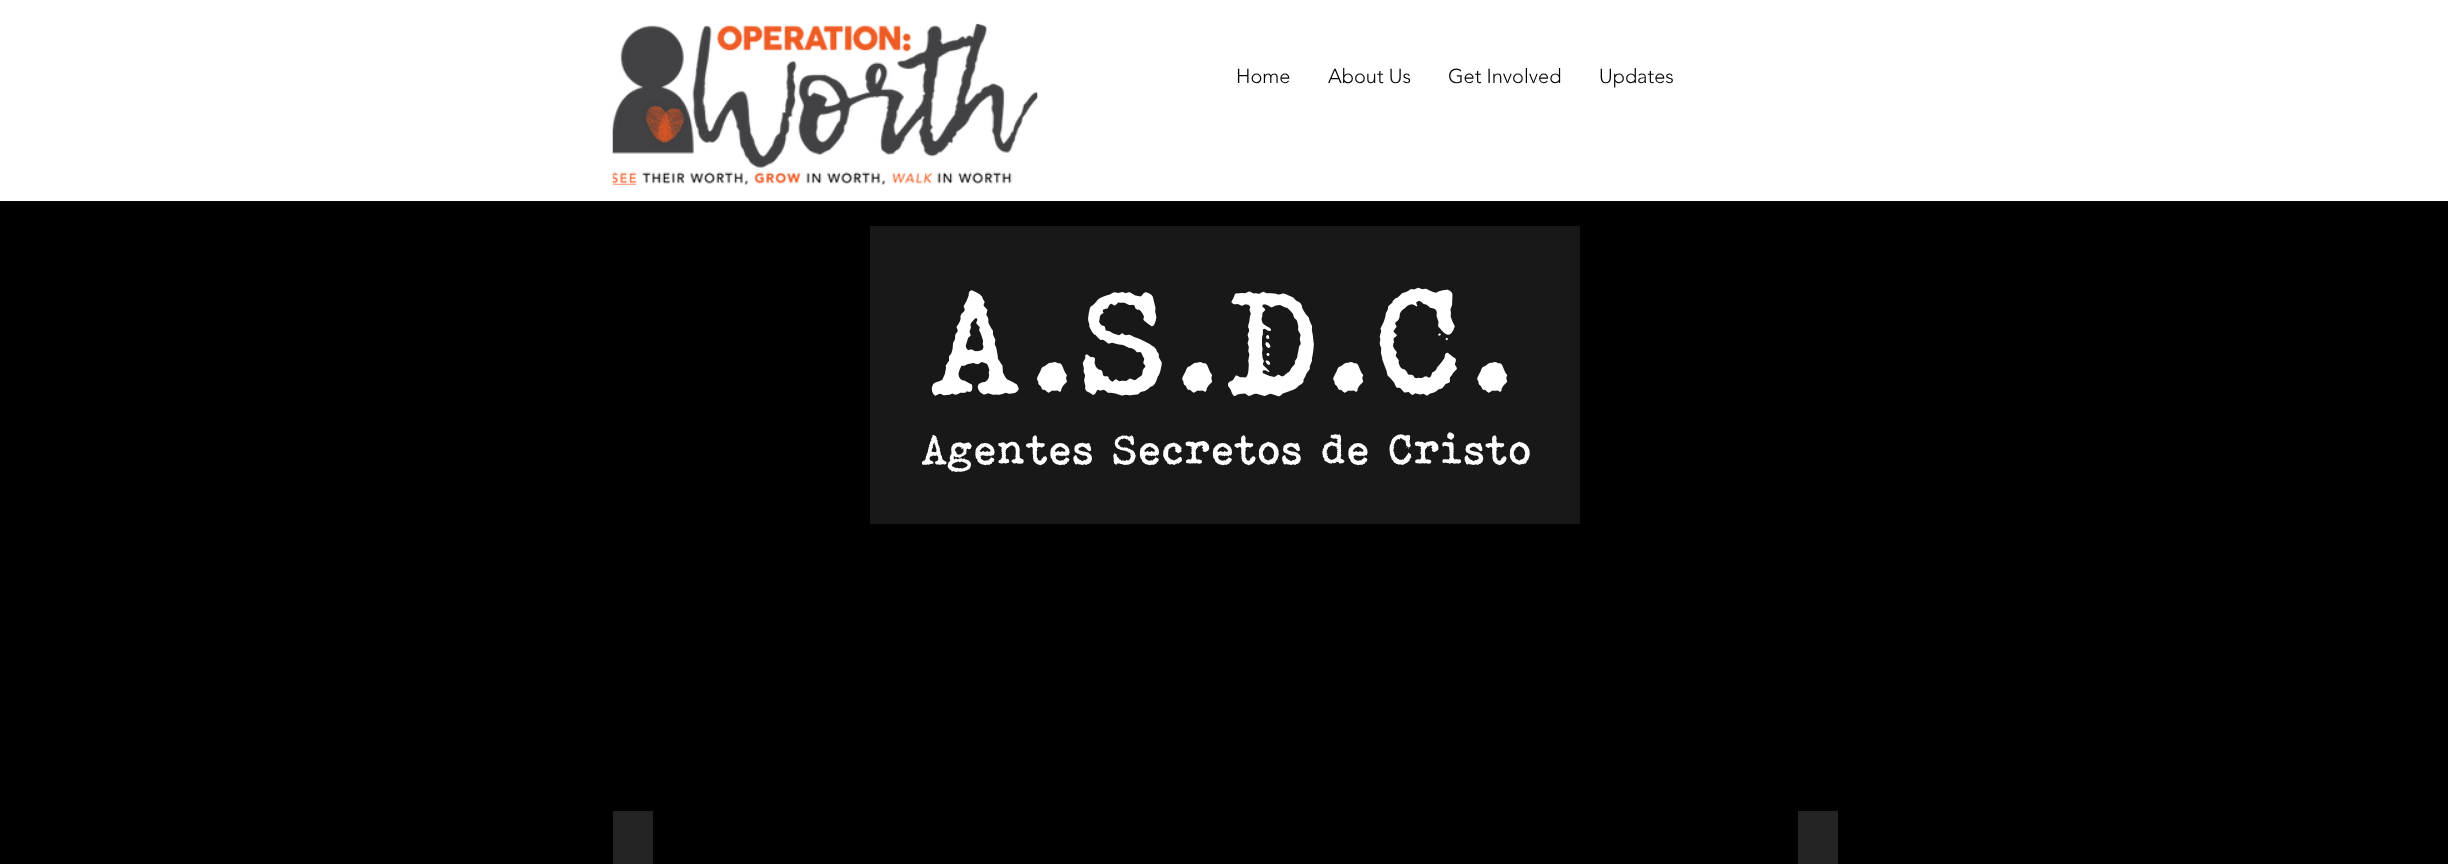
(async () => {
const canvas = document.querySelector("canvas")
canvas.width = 2448
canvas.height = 864
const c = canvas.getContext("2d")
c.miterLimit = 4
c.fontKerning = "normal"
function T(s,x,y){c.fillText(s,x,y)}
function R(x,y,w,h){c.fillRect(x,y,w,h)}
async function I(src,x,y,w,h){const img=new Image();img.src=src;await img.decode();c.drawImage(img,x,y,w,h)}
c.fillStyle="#000"
R(0,0,2448,864)
c.fillStyle="#fff"
R(0,0,2448,201)
c.fillStyle="#050505"
R(0,201,2448,1)
await I("1.png",612,23,426,162)
c.font="300 20px 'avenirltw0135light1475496'"
c.fillStyle="#000"
T("Home",1236,83)
T("About Us",1328,83)
T("Get Involved",1448,83)
T("Updates",1599,83)
c.fillStyle="#181818"
R(870,226,710,298)
c.font="150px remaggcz"
c.fillStyle="#fff"
T("A.S.D.C.",932,389)
c.font="42.5px remaggcz"
T("Agentes Secretos de Cristo",922,463)
c.fillStyle="#232323"
R(613,811,40,53)
R(1798,811,40,53)
})()
